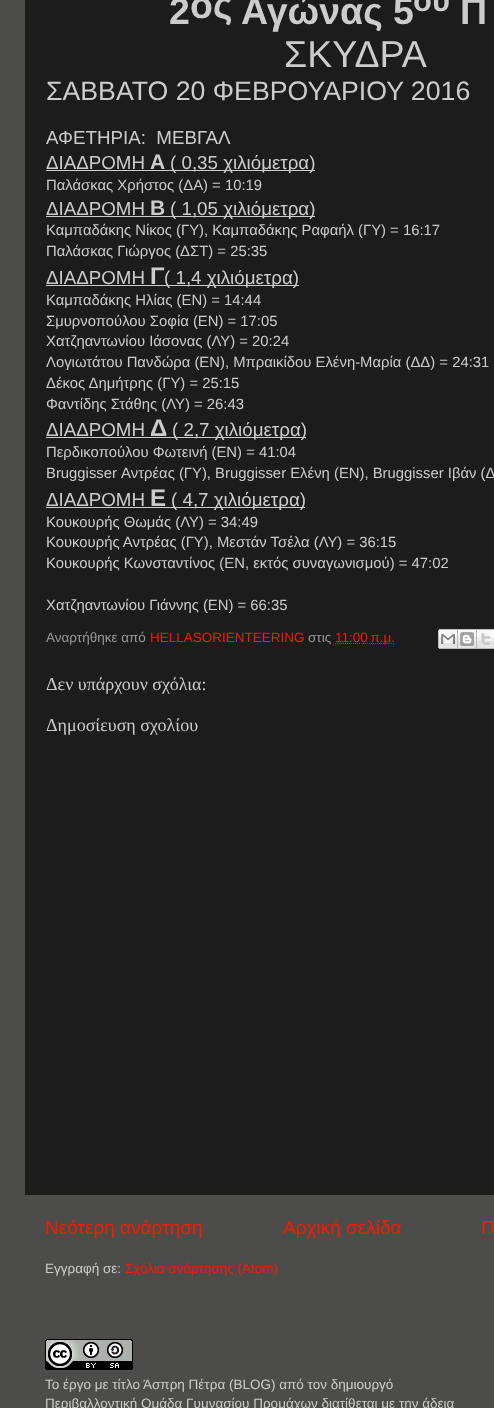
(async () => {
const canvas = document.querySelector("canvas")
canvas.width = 494
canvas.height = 1408
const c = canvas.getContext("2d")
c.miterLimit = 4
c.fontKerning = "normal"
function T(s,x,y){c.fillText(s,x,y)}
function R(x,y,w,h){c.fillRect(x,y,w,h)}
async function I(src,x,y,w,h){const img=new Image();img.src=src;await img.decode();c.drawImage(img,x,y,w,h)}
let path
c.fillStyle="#4c4c4b"
R(0,0,494,1408)
c.fillStyle="#1c1c1c"
R(25,0,469,1195)
c.font="bold 37.5px Liberation Sans"
c.fillStyle="#ccc"
T("2",169,24)
T("ος",190,18)
T("Αγώνας 5",241,24)
c.font="bold 31px Liberation Sans"
T("ου",413,11)
c.font="bold 37.5px Liberation Sans"
T("Π",460,24)
c.font="37.5px Liberation Sans"
T("ΣΚΥΔΡΑ",284,67)
c.font="26.7px Liberation Sans"
T("ΣΑΒΒΑΤΟ 20 ΦΕΒΡΟΥΑΡΙΟΥ 2016",46,100)
c.font="18.75px Liberation Sans"
T("ΑΦΕΤΗΡΙΑ:  ΜΕΒΓΑΛ",46,144)
T("ΔΙΑΔΡΟΜΗ",46,169)
R(46,170,269,1)
c.font="bold 21px Liberation Sans"
T("Α",150,169)
c.font="18.75px Liberation Sans"
T("( 0,35 χιλιόμετρα)",170,169)
c.font="14.85px Liberation Sans"
T("Παλάσκας Χρήστος (ΔΑ) = 10:19",46,190)
c.font="18.75px Liberation Sans"
T("ΔΙΑΔΡΟΜΗ",46,215)
R(46,216,269,1)
c.font="bold 21px Liberation Sans"
T("Β",150,215)
c.font="18.75px Liberation Sans"
T("( 1,05 χιλιόμετρα)",170,215)
c.font="14.85px Liberation Sans"
T("Καμπαδάκης Νίκος (ΓΥ), Καμπαδάκης Ραφαήλ (ΓΥ) = 16:17",46,235)
T("Παλάσκας Γιώργος (ΔΣΤ) = 25:35",46,256)
c.font="18.75px Liberation Sans"
T("ΔΙΑΔΡΟΜΗ",46,284)
R(46,285,253,1)
c.font="bold 24px Liberation Sans"
T("Γ",150,284)
c.font="18.75px Liberation Sans"
T("( 1,4 χιλιόμετρα)",164,284)
c.font="14.85px Liberation Sans"
T("Καμπαδάκης Ηλίας (ΕΝ) = 14:44",46,305)
T("Σμυρνοπούλου Σοφία (ΕΝ) = 17:05",46,326)
T("Χατζηαντωνίου Ιάσονας (ΛΥ) = 20:24",46,346)
T("Λογιωτάτου Πανδώρα (ΕΝ), Μπραικίδου Ελένη-Μαρία (ΔΔ) = 24:31",46,367)
T("Δέκος Δημήτρης (ΓΥ) = 25:15",46,388)
T("Φαντίδης Στάθης (ΛΥ) = 26:43",46,409)
c.font="18.75px Liberation Sans"
T("ΔΙΑΔΡΟΜΗ",46,436)
R(46,437,260,1)
c.font="bold 24px Liberation Sans"
T("Δ",150,436)
c.font="18.75px Liberation Sans"
T("( 2,7 χιλιόμετρα)",172,436)
c.font="14.85px Liberation Sans"
T("Περδικοπούλου Φωτεινή (ΕΝ) = 41:04",46,457)
T("Bruggisser Αντρέας (ΓΥ), Bruggisser Ελένη (ΕΝ), Bruggisser Ιβάν (Δ",46,478)
c.font="18.75px Liberation Sans"
T("ΔΙΑΔΡΟΜΗ",46,506)
R(46,507,259,1)
c.font="bold 24px Liberation Sans"
T("Ε",150,506)
c.font="18.75px Liberation Sans"
T("( 4,7 χιλιόμετρα)",171,506)
c.font="14.85px Liberation Sans"
T("Κουκουρής Θωμάς (ΛΥ) = 34:49",46,527)
T("Κουκουρής Αντρέας (ΓΥ), Μεστάν Τσέλα (ΛΥ) = 36:15",46,547)
T("Κουκουρής Κωνσταντίνος (ΕΝ, εκτός συναγωνισμού) = 47:02",46,568)
T("Χατζηαντωνίου Γιάννης (ΕΝ) = 66:35",46,610)
c.font="13.5px Liberation Sans"
c.fillStyle="#999"
T("Αναρτήθηκε από",46,642)
c.fillStyle="#ff1800"
T("HELLASORIENTEERING",150,642)
c.fillStyle="#999"
T("στις",308,642)
path = new Path2D("M335 643.5h60")
c.strokeStyle="#ff1800"
c.setLineDash([1,1])
c.stroke(path)
c.fillStyle="#ff1800"
T("11:00 π.μ.",335,642)
await I("1.png",438,629,20,20)
await I("2.png",458,629,19,20)
await I("3.png",477,629,17,20)
c.font="18px Liberation Serif"
c.fillStyle="#ccc"
T("Δεν υπάρχουν σχόλια:",46,690)
T("Δημοσίευση σχολίου",46,731)
c.font="19px Liberation Sans"
c.fillStyle="#ff1800"
T("Νεότερη ανάρτηση",45,1234)
T("Αρχική σελίδα",283,1234)
T("Π",481,1234)
c.font="13.5px Liberation Sans"
c.fillStyle="#ccc"
T("Εγγραφή σε:",45,1273)
c.fillStyle="#ff1800"
T("Σχόλια ανάρτησης (Atom)",125,1273)
await I("4.png",45,1339,88,31)
c.fillStyle="#ccc"
T("Το έργο με τίτλο",45,1389)
T("Άσπρη Πέτρα (BLOG) από τον δημιουργό",143,1389)
T("Περιβαλλοντική Ομάδα Γυμνασίου Προμάχων διατίθεται με την άδεια",45,1408)
})()
